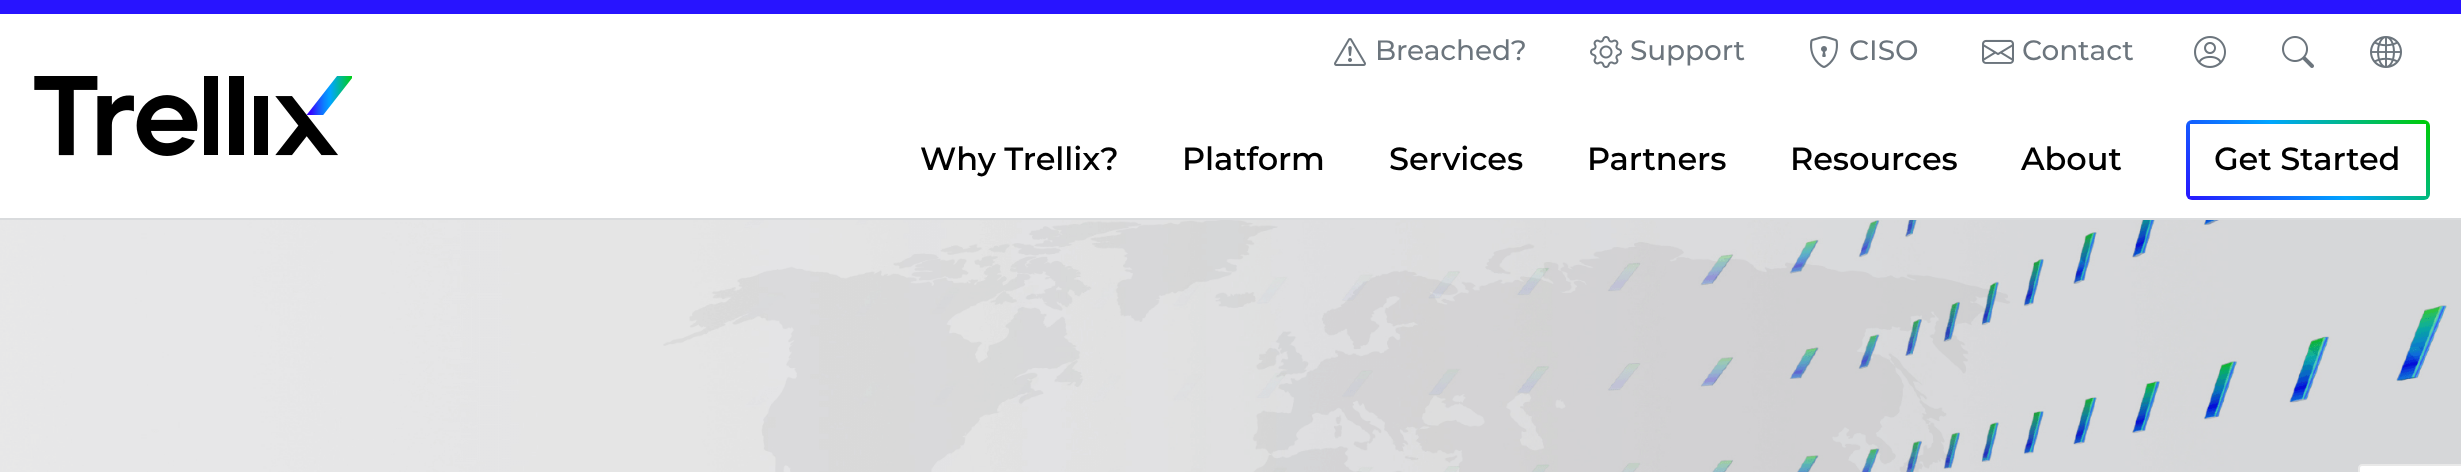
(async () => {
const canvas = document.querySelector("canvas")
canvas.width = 2461
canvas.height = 472
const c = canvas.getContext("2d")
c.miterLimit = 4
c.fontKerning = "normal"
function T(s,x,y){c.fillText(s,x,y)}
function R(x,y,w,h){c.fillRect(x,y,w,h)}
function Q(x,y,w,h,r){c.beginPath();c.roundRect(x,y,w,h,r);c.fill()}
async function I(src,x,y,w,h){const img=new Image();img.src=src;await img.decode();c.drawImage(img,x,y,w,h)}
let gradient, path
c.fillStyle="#fff"
R(0,0,2461,472)
c.fillStyle="#d9dbdd"
R(0,218,2461,2)
c.fillStyle="#2814ff"
R(0,0,2461,14)
await I("1.png",34,76,318,80)
await I("2.png",1334,38,32,28)
c.letterSpacing="-0.1px"
c.font="500 28px Montserrat"
c.fillStyle="#6c757d"
T("Breached?",1375,60)
await I("3.png",1590,36,32,32)
T("Support",1630,60)
await I("4.png",1810,36,28,32)
T("CISO",1849,60)
await I("5.png",1982,39,32,25)
T("Contact",2022,60)
await I("6.png",2194,36,32,32)
await I("7.png",2282,36,32,32)
await I("8.png",2370,36,32,32)
c.font="600 32px Montserrat"
c.fillStyle="#000"
T("Why Trellix?",920,170)
T("Platform",1182,170)
T("Services",1389,170)
T("Partners",1587,170)
T("Resources",1790,170)
T("About",2021,170)
gradient = c.createLinearGradient(2389,79,2227,241)
gradient.addColorStop(0,"#00cd00")
gradient.addColorStop(.5,"#00a5ff")
gradient.addColorStop(1,"#2814ff")
c.fillStyle = gradient
Q(2186,120,244,80,6)
c.fillStyle="#fff"
R(2190,124,236,72)
c.fillStyle="#000"
T("Get Started",2214,170)
await I("9.png",0,220,2461,252)
c.fillStyle="#fff"
path = new Path2D("M2362 465h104v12h-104c-1.5 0-3-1.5-3-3v-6c0-1.5 1.5-3 3-3z")
c.fill(path)
c.strokeStyle="#e9e9e9"
c.lineWidth=2
c.stroke(path)
})()
